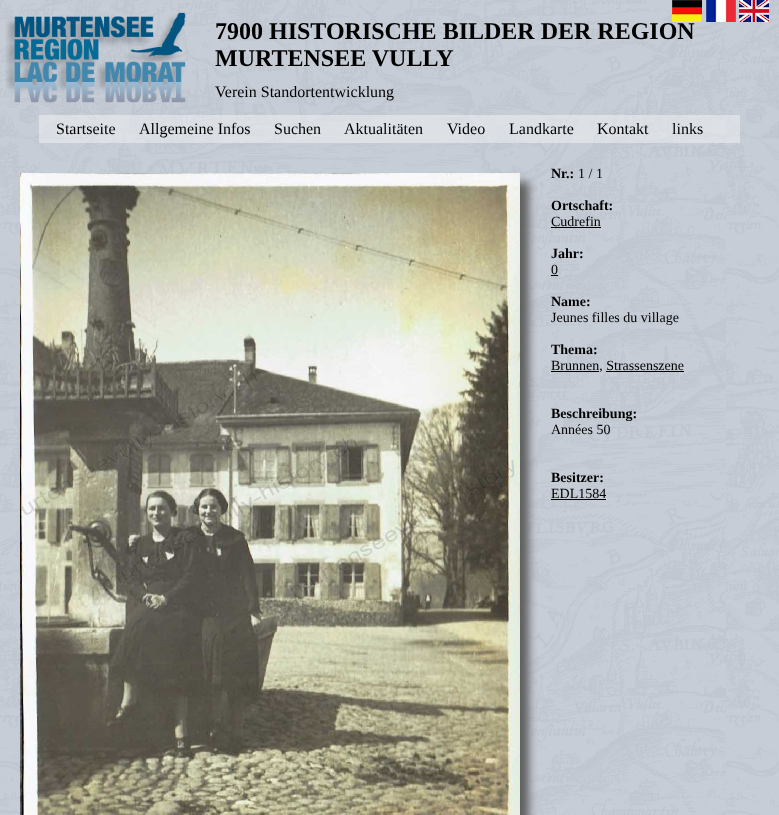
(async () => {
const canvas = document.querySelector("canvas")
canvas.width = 779
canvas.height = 815
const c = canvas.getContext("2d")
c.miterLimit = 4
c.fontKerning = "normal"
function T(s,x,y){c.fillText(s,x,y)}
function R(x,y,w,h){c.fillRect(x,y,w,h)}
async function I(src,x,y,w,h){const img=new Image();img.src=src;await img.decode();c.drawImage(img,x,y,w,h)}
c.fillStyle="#fff"
R(0,0,779,815)
await I("1.png",0,0,779,815)
await I("2.png",5,12,181,91)
c.font="bold 24px Liberation Serif"
c.fillStyle="#000"
T("7900 HISTORISCHE BILDER DER REGION",215,39)
T("MURTENSEE VULLY",215,66)
c.font="16px Liberation Serif"
T("Verein Standortentwicklung",215,97)
await I("3.png",672,0,30,22)
await I("4.png",706,0,30,22)
await I("5.png",739,0,30,22)
c.fillStyle="#ffffff66"
R(39,115,701,28)
c.fillStyle="#000"
T("Startseite",56,134)
T("Allgemeine Infos",139,134)
T("Suchen",274,134)
T("Aktualitäten",344,134)
T("Video",447,134)
T("Landkarte",509,134)
T("Kontakt",597,134)
T("links",672,134)
c.fillStyle="#606060"
c.filter="blur(4.5px)"
c.beginPath()
c.rect(29,182,500,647)
c.fill()
c.filter="none"
await I("6.png",20,173,500,642)
c.font="bold 14px Liberation Serif"
c.fillStyle="#000"
T("Nr.:",551,178)
c.font="14px Liberation Serif"
T("1 / 1",578,178)
c.font="bold 14px Liberation Serif"
T("Ortschaft:",551,210)
c.font="14px Liberation Serif"
T("Cudrefin",551,226)
R(551,227,50,1)
c.font="bold 14px Liberation Serif"
T("Jahr:",551,258)
c.font="14px Liberation Serif"
T("0",551,274)
R(551,275,7,1)
c.font="bold 14px Liberation Serif"
T("Name:",551,306)
c.font="14px Liberation Serif"
T("Jeunes filles du village",551,322)
c.font="bold 14px Liberation Serif"
T("Thema:",551,354)
R(551,371,48,1)
c.font="14px Liberation Serif"
T("Brunnen, Strassenszene",551,370)
R(606,371,78,1)
c.font="bold 14px Liberation Serif"
T("Beschreibung:",551,418)
c.font="14px Liberation Serif"
T("Années 50",551,434)
c.font="bold 14px Liberation Serif"
T("Besitzer:",551,482)
c.font="14px Liberation Serif"
T("EDL1584",551,498)
R(551,499,55,1)
})()
